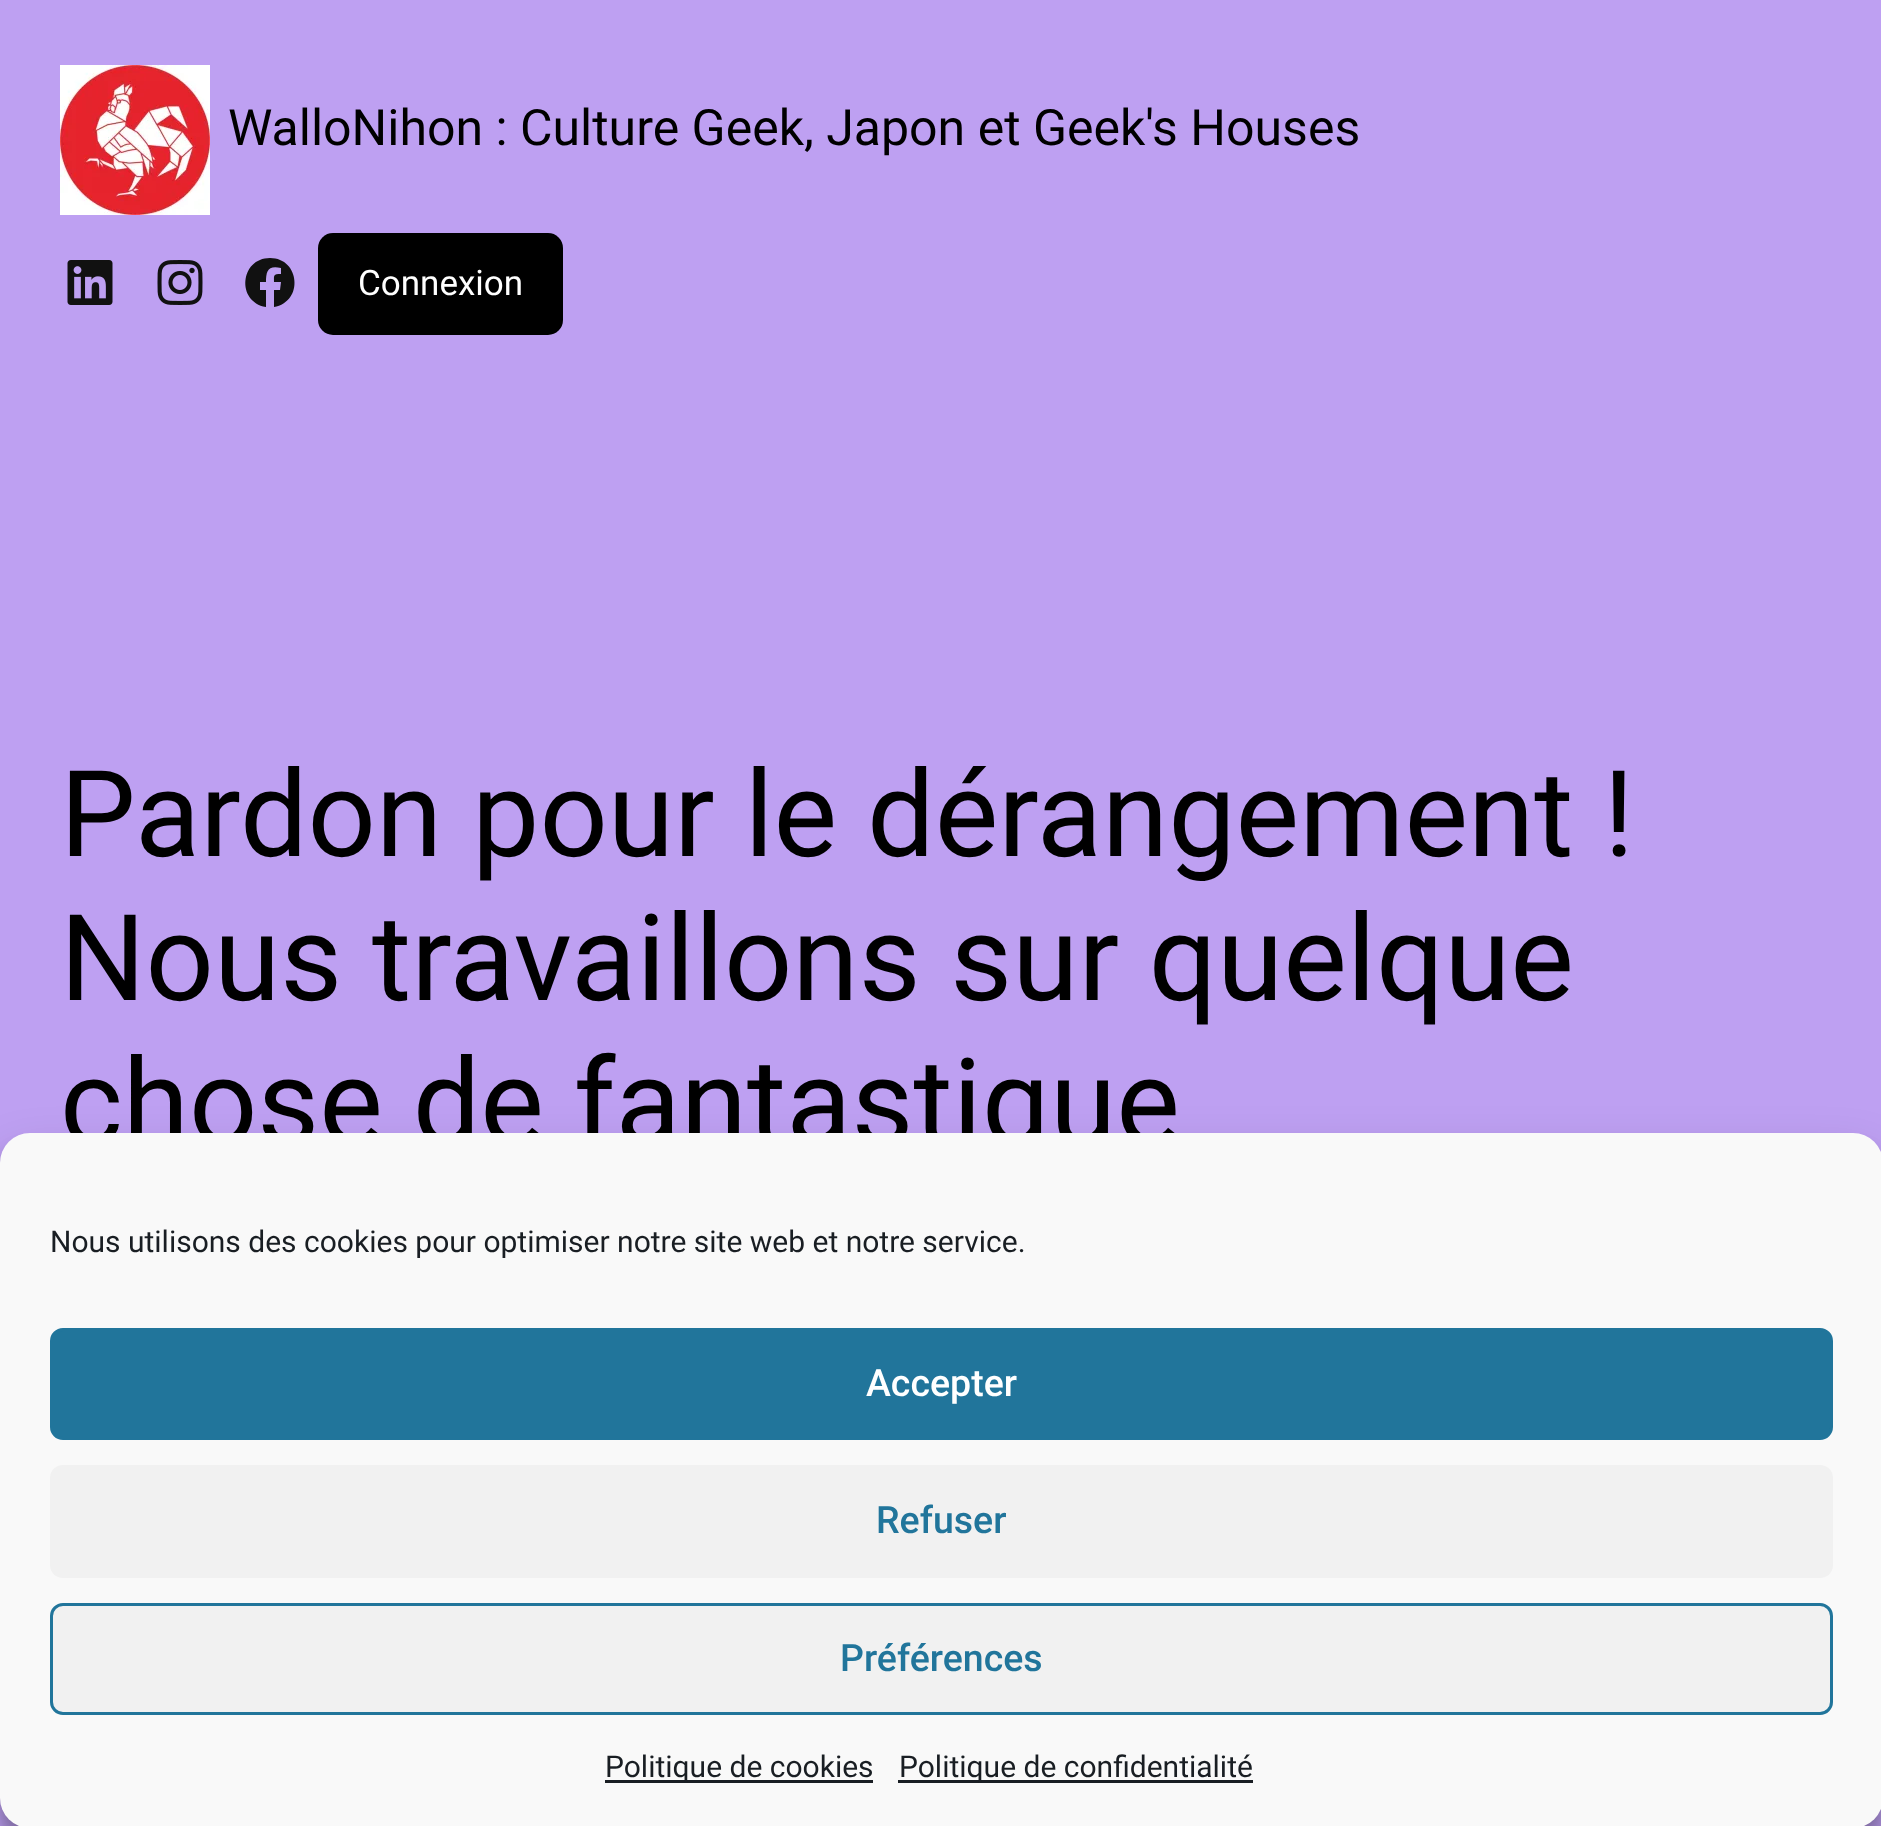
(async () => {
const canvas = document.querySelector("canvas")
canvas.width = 1881
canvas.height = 1826
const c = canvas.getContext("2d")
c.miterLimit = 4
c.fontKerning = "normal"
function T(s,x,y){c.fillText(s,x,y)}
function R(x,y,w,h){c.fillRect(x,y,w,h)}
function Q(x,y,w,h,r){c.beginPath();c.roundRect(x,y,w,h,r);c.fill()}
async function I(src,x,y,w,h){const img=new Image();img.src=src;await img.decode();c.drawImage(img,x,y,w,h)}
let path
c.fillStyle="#bea0f2"
R(0,0,1881,1826)
await I("1.png",60,65,150,150)
c.font="50px Roboto"
c.fillStyle="#000"
T("WalloNihon : Culture Geek, Japon et Geek's Houses",228,145)
await I("2.png",67,260,46,45)
await I("3.png",157,260,46,45)
c.fillStyle="#111"
path = new Path2D("M270 258c-30 0-34 44-4 49v-17h-6v-8h6c0-11 2-17 15-14v6c-8 0-7 1-7 8h7l-1 8h-6v17c30-5 26-49-4-49z")
c.fill(path)
c.fillStyle="#000"
Q(318,233,245,102,15)
c.font="35px Roboto"
c.fillStyle="#fff"
T("Connexion",358,295)
c.font="120px Roboto"
c.fillStyle="#000"
T("Pardon pour le dérangement !",60,856)
T("Nous travaillons sur quelque",60,1000)
T("chose de fantastique",60,1144)
c.fillStyle="#0000003b"
c.filter="blur(7.5px)"
c.beginPath()
c.roundRect(0,1148,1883,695,30)
c.fill()
c.filter="none"
c.fillStyle="#00000030"
c.filter="blur(25px)"
c.beginPath()
c.roundRect(0,1158,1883,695,30)
c.fill()
c.filter="none"
c.fillStyle="#f9f9f9"
Q(0,1133,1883,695,30)
c.font="30px Roboto"
c.fillStyle="#191e23"
T("Nous utilisons des cookies pour optimiser notre site web et notre service.",50,1252)
c.fillStyle="#21759b"
c.beginPath()
c.roundRect(51.5,1329.5,1780,109,11.5)
c.fill()
c.strokeStyle="#21759b"
c.lineWidth=3
c.stroke()
c.font="500 37.5px Roboto"
c.fillStyle="#fff"
T("Accepter",866,1396)
c.fillStyle="#f1f1f1"
Q(50,1465,1783,113,13)
c.fillStyle="#21759b"
T("Refuser",876,1533)
c.fillStyle="#f1f1f1"
c.beginPath()
c.roundRect(51.5,1604.5,1780,109,11.5)
c.fill()
c.stroke()
c.fillStyle="#21759b"
T("Préférences",840,1671)
c.fillStyle="#191e23"
R(605,1780,268,3)
c.font="30px Roboto"
T("Politique de cookies",605,1777)
R(898,1780,355,3)
T("Politique de confidentialité",899,1777)
})()
